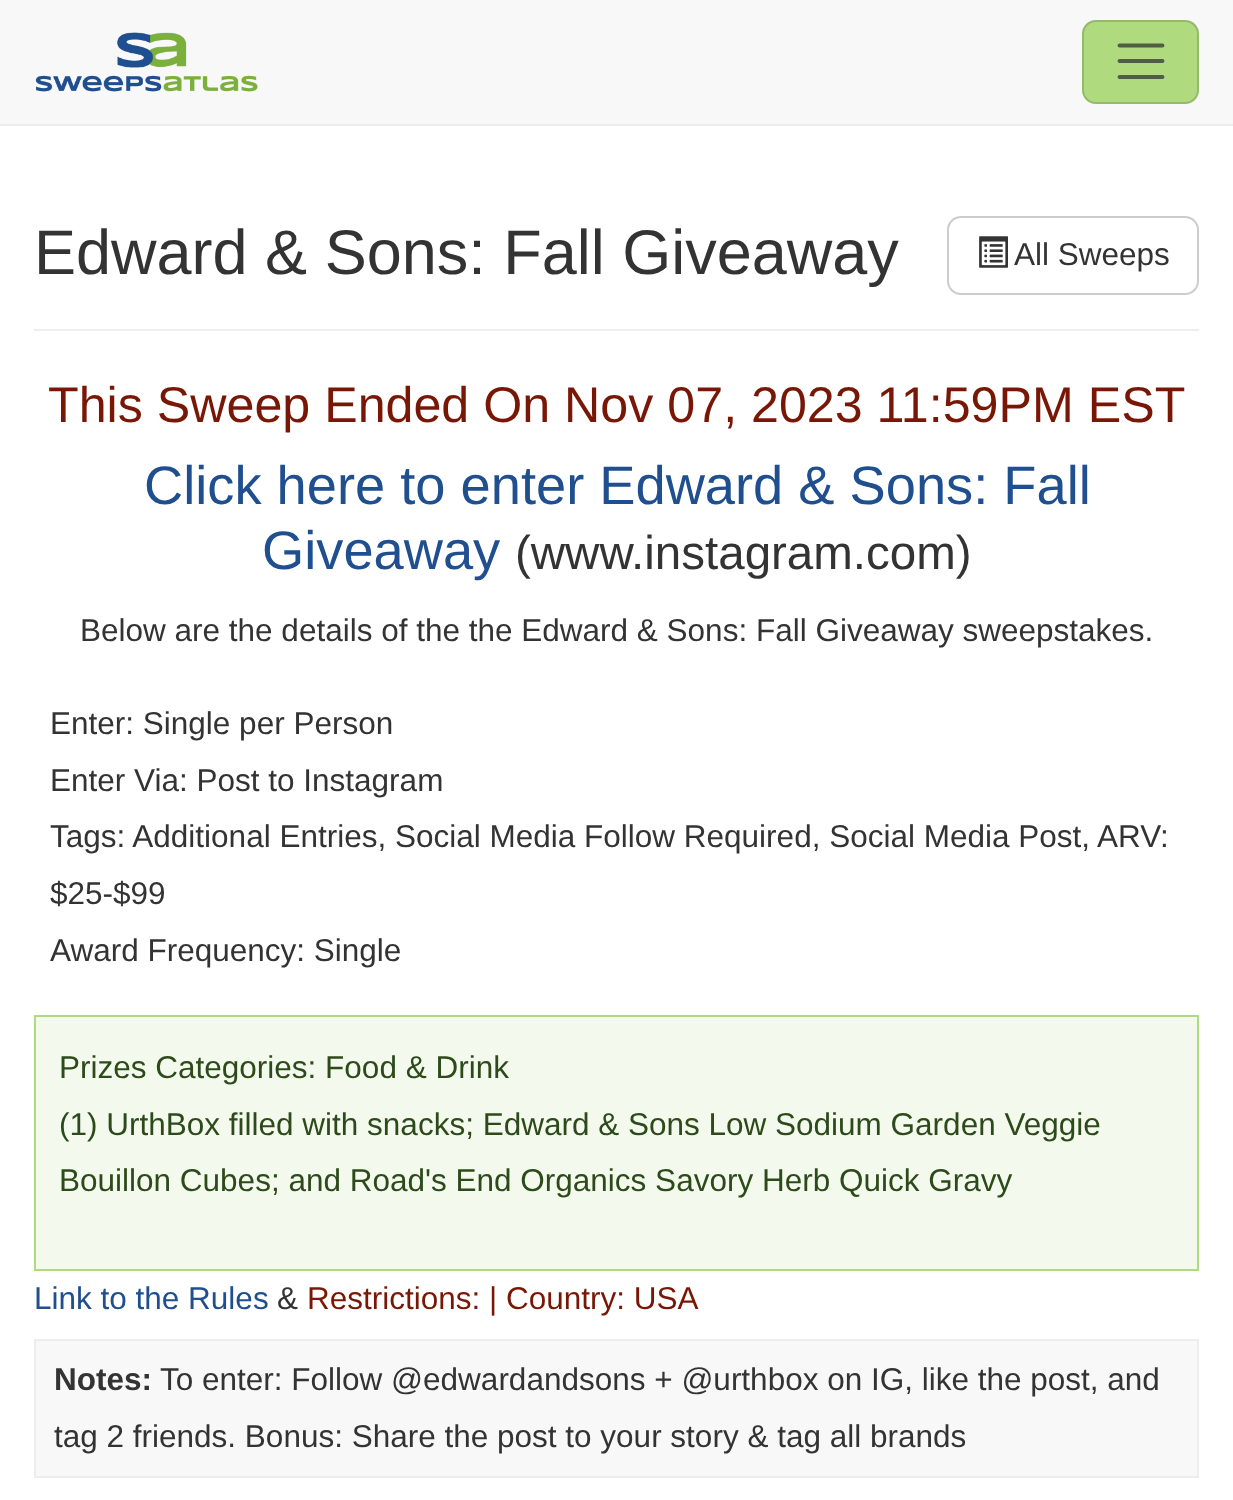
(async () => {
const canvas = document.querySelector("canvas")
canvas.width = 1233
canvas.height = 1500
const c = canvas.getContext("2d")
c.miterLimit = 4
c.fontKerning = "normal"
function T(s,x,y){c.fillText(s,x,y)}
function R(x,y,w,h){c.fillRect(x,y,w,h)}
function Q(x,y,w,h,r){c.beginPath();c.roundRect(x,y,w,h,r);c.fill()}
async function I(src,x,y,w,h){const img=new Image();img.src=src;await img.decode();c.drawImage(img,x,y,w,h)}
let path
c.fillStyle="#fff"
R(0,0,1233,1500)
c.fillStyle="#f8f8f8"
R(0,0,1233,124)
c.fillStyle="#ededed"
R(0,124,1233,2)
await I("1.png",35,32,223,60)
c.fillStyle="#afda7d"
Q(1082,20,117,84,14)
c.beginPath()
c.roundRect(1083,21,115,82,13)
c.strokeStyle="#00000026"
c.lineWidth=2
c.stroke()
path = new Path2D("M1119.5 45.5h43m-43 15.5h43m-43 16h43")
c.strokeStyle="#525d46"
c.lineWidth=3.9
c.lineCap="round"
c.stroke(path)
c.fillStyle="#eee"
R(34,329,1165,2)
c.font="63px Liberation Sans"
c.fillStyle="#333"
T("Edward & Sons: Fall Giveaway",34,274)
c.beginPath()
c.roundRect(948,217,250,77,13)
c.strokeStyle="#ccc"
c.lineWidth=2
c.stroke()
await I("2.png",979,236,29,32)
c.font="31.5px Liberation Sans"
T("All Sweeps",1014,265)
c.font="50.2px Liberation Sans"
c.fillStyle="#791707"
T("This Sweep Ended On Nov 07, 2023 11:59PM EST",48,422)
c.font="54.25px Liberation Sans"
c.fillStyle="#204f8f"
T("Click here to enter Edward & Sons: Fall",144,504)
T("Giveaway",262,569)
c.font="47.5px Liberation Sans"
c.fillStyle="#333"
T("(www.instagram.com)",515,569)
c.font="31.5px Liberation Sans"
T("Below are the details of the the Edward & Sons: Fall Giveaway sweepstakes.",80,641)
T("Enter: Single per Person",50,734)
T("Enter Via: Post to Instagram",50,791)
T("Tags: Additional Entries, Social Media Follow Required, Social Media Post, ARV:",50,847)
T("$25-$99",50,904)
T("Award Frequency: Single",50,961)
c.fillStyle="#f4f9ee"
c.beginPath()
c.rect(35,1016,1163,254)
c.fill()
c.strokeStyle="#afda7d"
c.stroke()
c.fillStyle="#2d4a1a"
T("Prizes Categories: Food & Drink",59,1078)
T("(1) UrthBox filled with snacks; Edward & Sons Low Sodium Garden Veggie",59,1135)
T("Bouillon Cubes; and Road's End Organics Savory Herb Quick Gravy",59,1191)
c.fillStyle="#204f8f"
T("Link to the Rules",34,1309)
c.fillStyle="#333"
T("&",277,1309)
c.fillStyle="#791707"
T("Restrictions: | Country: USA",307,1309)
c.fillStyle="#f8f8f8"
c.beginPath()
c.rect(35,1340,1163,137)
c.fill()
c.strokeStyle="#ededed"
c.stroke()
c.font="bold 31.5px Liberation Sans"
c.fillStyle="#333"
T("Notes:",54,1390)
c.font="31.5px Liberation Sans"
T("To enter: Follow @edwardandsons + @urthbox on IG, like the post, and",160,1390)
T("tag 2 friends. Bonus: Share the post to your story & tag all brands",54,1447)
})()
